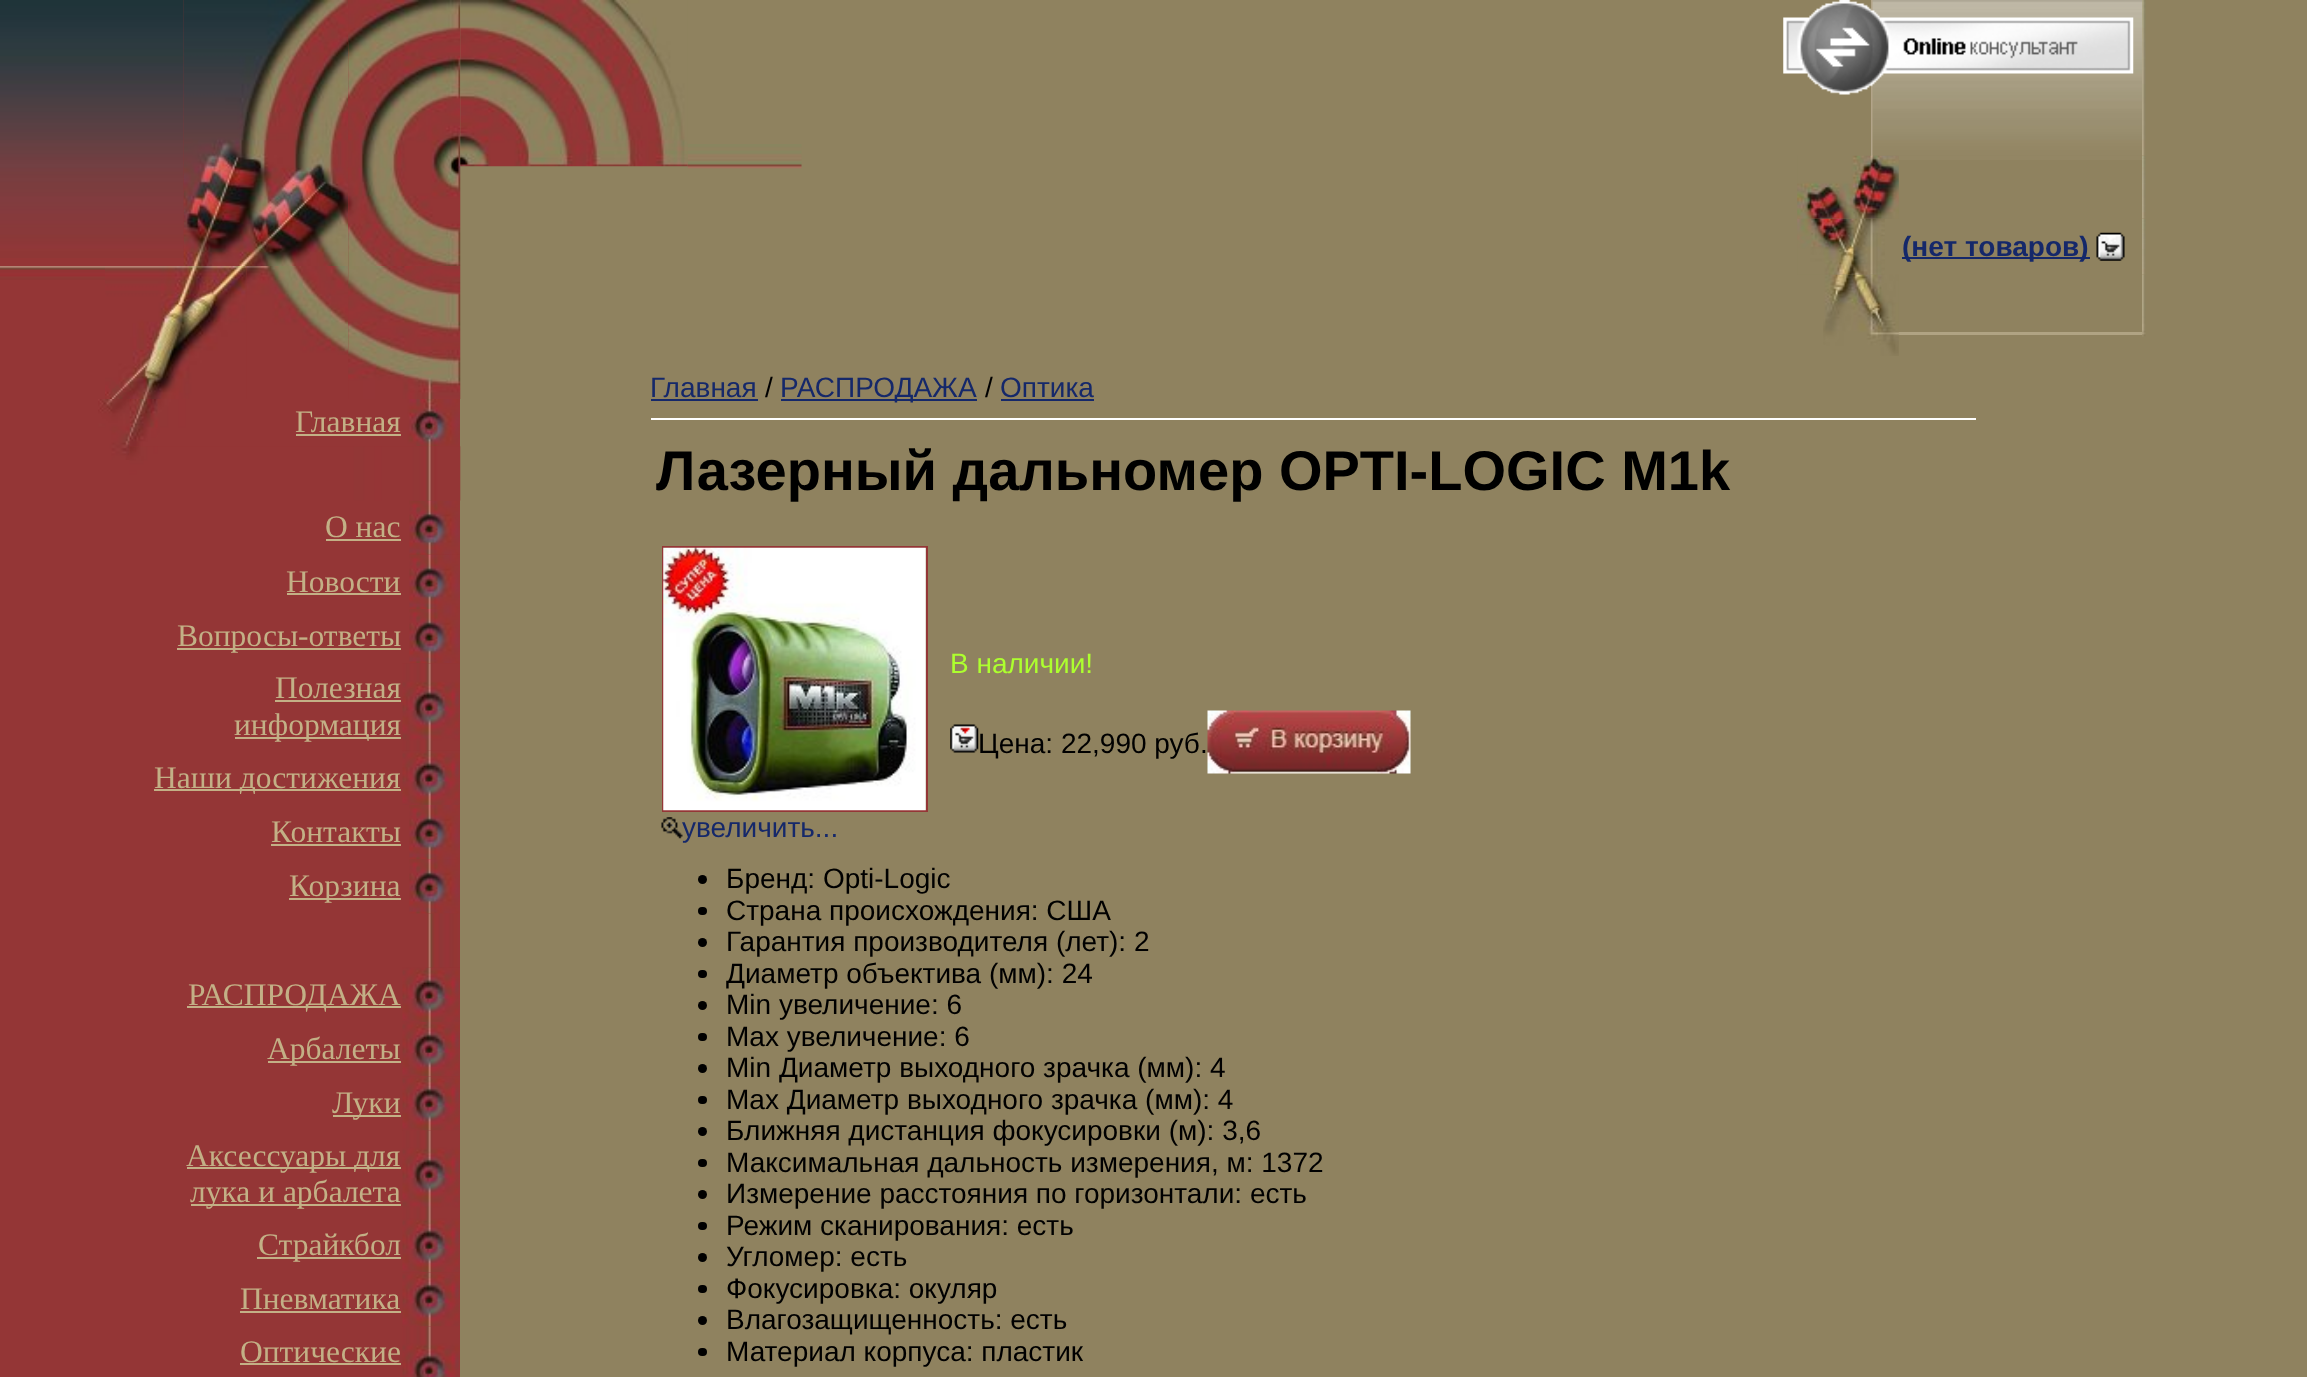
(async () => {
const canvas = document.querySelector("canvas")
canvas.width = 2307
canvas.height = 1377
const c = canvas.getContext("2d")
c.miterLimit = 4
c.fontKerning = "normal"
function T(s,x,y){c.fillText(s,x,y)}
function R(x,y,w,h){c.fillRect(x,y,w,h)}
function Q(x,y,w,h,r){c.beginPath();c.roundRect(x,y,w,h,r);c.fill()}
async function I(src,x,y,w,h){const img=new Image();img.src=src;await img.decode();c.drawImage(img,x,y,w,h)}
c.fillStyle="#943636"
R(0,0,2307,1377)
c.fillStyle="#8f825f"
R(460,0,1847,1377)
c.fillStyle="#b2a489"
R(1871,0,2,156)
await I("28.png",1872,0,270,156)
await I("1.png",1783,0,351,95)
await I("2.png",0,0,184,258)
await I("3.png",183,0,166,266)
await I("4.png",348,0,113,266)
await I("5.png",0,266,105,14)
await I("6.png",105,266,142,133)
await I("7.png",247,266,102,89)
await I("8.png",348,266,113,133)
await I("10.png",129,399,331,48)
await I("9.png",98,399,32,61)
c.font="31.5px Liberation Serif"
c.fillStyle="#c3b086"
T("Главная",295,432)
R(296,434,105,2)
await I("11.png",426,446,34,55)
await I("13.png",409,500,51,55)
await I("12.png",129,446,332,55)
T("О нас",325,537)
R(326,539,75,2)
await I("14.png",409,554,51,55)
T("Новости",286,592)
R(287,593,114,2)
await I("15.png",409,609,51,54)
R(177,648,224,2)
T("Вопросы-ответы",177,646)
await I("16.png",402,663,58,88)
T("Полезная",275,698)
R(275,700,126,2)
R(235,737,166,2)
T("информация",234,735)
await I("17.png",402,750,58,55)
R(154,789,247,2)
T("Наши достижения",154,788)
await I("18.png",409,805,51,55)
T("Контакты",271,842)
R(271,844,130,2)
await I("19.png",409,859,51,55)
R(289,898,112,2)
T("Корзина",289,896)
await I("20.png",427,913,33,55)
await I("21.png",402,967,58,55)
R(187,1006,214,2)
T("РАСПРОДАЖА",188,1005)
await I("22.png",402,1022,58,54)
R(268,1061,133,2)
T("Арбалеты",267,1059)
await I("23.png",402,1076,58,55)
R(333,1115,68,2)
T("Луки",332,1113)
await I("24.png",402,1130,58,88)
R(187,1167,214,2)
T("Аксессуары для",186,1166)
R(191,1204,210,2)
T("лука и арбалета",190,1202)
await I("22.png",402,1218,58,54)
R(257,1257,144,2)
T("Страйкбол",258,1255)
await I("23.png",402,1272,58,55)
T("Пневматика",240,1309)
R(240,1311,161,2)
await I("25.png",402,1326,58,51)
T("Оптические",240,1362)
R(240,1363,161,2)
await I("27.png",687,144,115,25)
await I("26.png",460,0,228,167)
await I("29.png",2142,0,4,156)
await I("30.png",1797,155,102,64)
c.fillStyle="#938664"
R(1899,156,243,4)
await I("31.png",2142,156,4,63)
await I("32.png",1797,218,88,57)
c.fillStyle="#15286a"
R(1902,257,188,2)
c.font="bold 28px Liberation Sans"
T("(нет товаров)",1902,256)
await I("33.png",2096,232,29,29)
await I("34.png",2142,219,4,56)
c.fillStyle="#b0a383"
R(1898,332,244,3)
await I("35.png",1823,274,76,82)
await I("36.png",2142,275,4,62)
c.font="28px Liberation Sans"
c.fillStyle="#15286a"
T("Главная",650,397)
R(651,399,107,2)
c.fillStyle="#000"
T("/",765,397)
c.fillStyle="#15286a"
R(781,399,196,2)
T("РАСПРОДАЖА",780,397)
c.fillStyle="#000"
T("/",985,397)
c.fillStyle="#15286a"
T("Оптика",1000,397)
R(1001,399,93,2)
c.fillStyle="#fff"
R(651,418,1325,2)
c.font="bold 56px Liberation Sans"
c.fillStyle="#000"
T("Лазерный дальномер OPTI-LOGIC M1k",656,490)
c.font="28px Liberation Sans"
c.fillStyle="#adff2f"
T("В наличии!",950,673)
await I("37.png",950,724,29,29)
c.fillStyle="#000"
T("Цена: 22,990 руб.",978,753)
await I("38.png",1207,710,204,64)
c.strokeStyle="#943636"
c.lineWidth=2
c.strokeRect(663,547,264,264)
await I("39.png",663,547,263,264)
await I("40.png",661,817,22,22)
c.fillStyle="#15286a"
T("увеличить...",682,837)
c.fillStyle="#000"
c.beginPath()
c.arc(702.5,879.5,4.5,0,7)
c.fill()
T("Бренд: Opti-Logic",726,888)
Q(698,907,9,8,4)
T("Страна происхождения: США",726,920)
c.beginPath()
c.arc(702.5,942.5,4.5,0,7)
c.fill()
T("Гарантия производителя (лет): 2",726,951)
Q(698,970,9,8,4)
T("Диаметр объектива (мм): 24",726,983)
c.beginPath()
c.arc(702.5,1005.5,4.5,0,7)
c.fill()
T("Min увеличение: 6",726,1014)
Q(698,1033,9,8,4)
T("Max увеличение: 6",726,1046)
c.beginPath()
c.arc(702.5,1068.5,4.5,0,7)
c.fill()
T("Min Диаметр выходного зрачка (мм): 4",726,1077)
Q(698,1096,9,8,4)
T("Max Диаметр выходного зрачка (мм): 4",726,1109)
c.beginPath()
c.arc(702.5,1131.5,4.5,0,7)
c.fill()
T("Ближняя дистанция фокусировки (м): 3,6",726,1140)
Q(698,1159,9,8,4)
T("Максимальная дальность измерения, м: 1372",726,1172)
c.beginPath()
c.arc(702.5,1194.5,4.5,0,7)
c.fill()
T("Измерение расстояния по горизонтали: есть",726,1203)
Q(698,1222,9,8,4)
T("Режим сканирования: есть",726,1235)
c.beginPath()
c.arc(702.5,1257.5,4.5,0,7)
c.fill()
T("Угломер: есть",726,1266)
Q(698,1285,9,8,4)
T("Фокусировка: окуляр",726,1298)
c.beginPath()
c.arc(702.5,1320.5,4.5,0,7)
c.fill()
T("Влагозащищенность: есть",726,1329)
Q(698,1348,9,8,4)
T("Материал корпуса: пластик",726,1361)
})()
